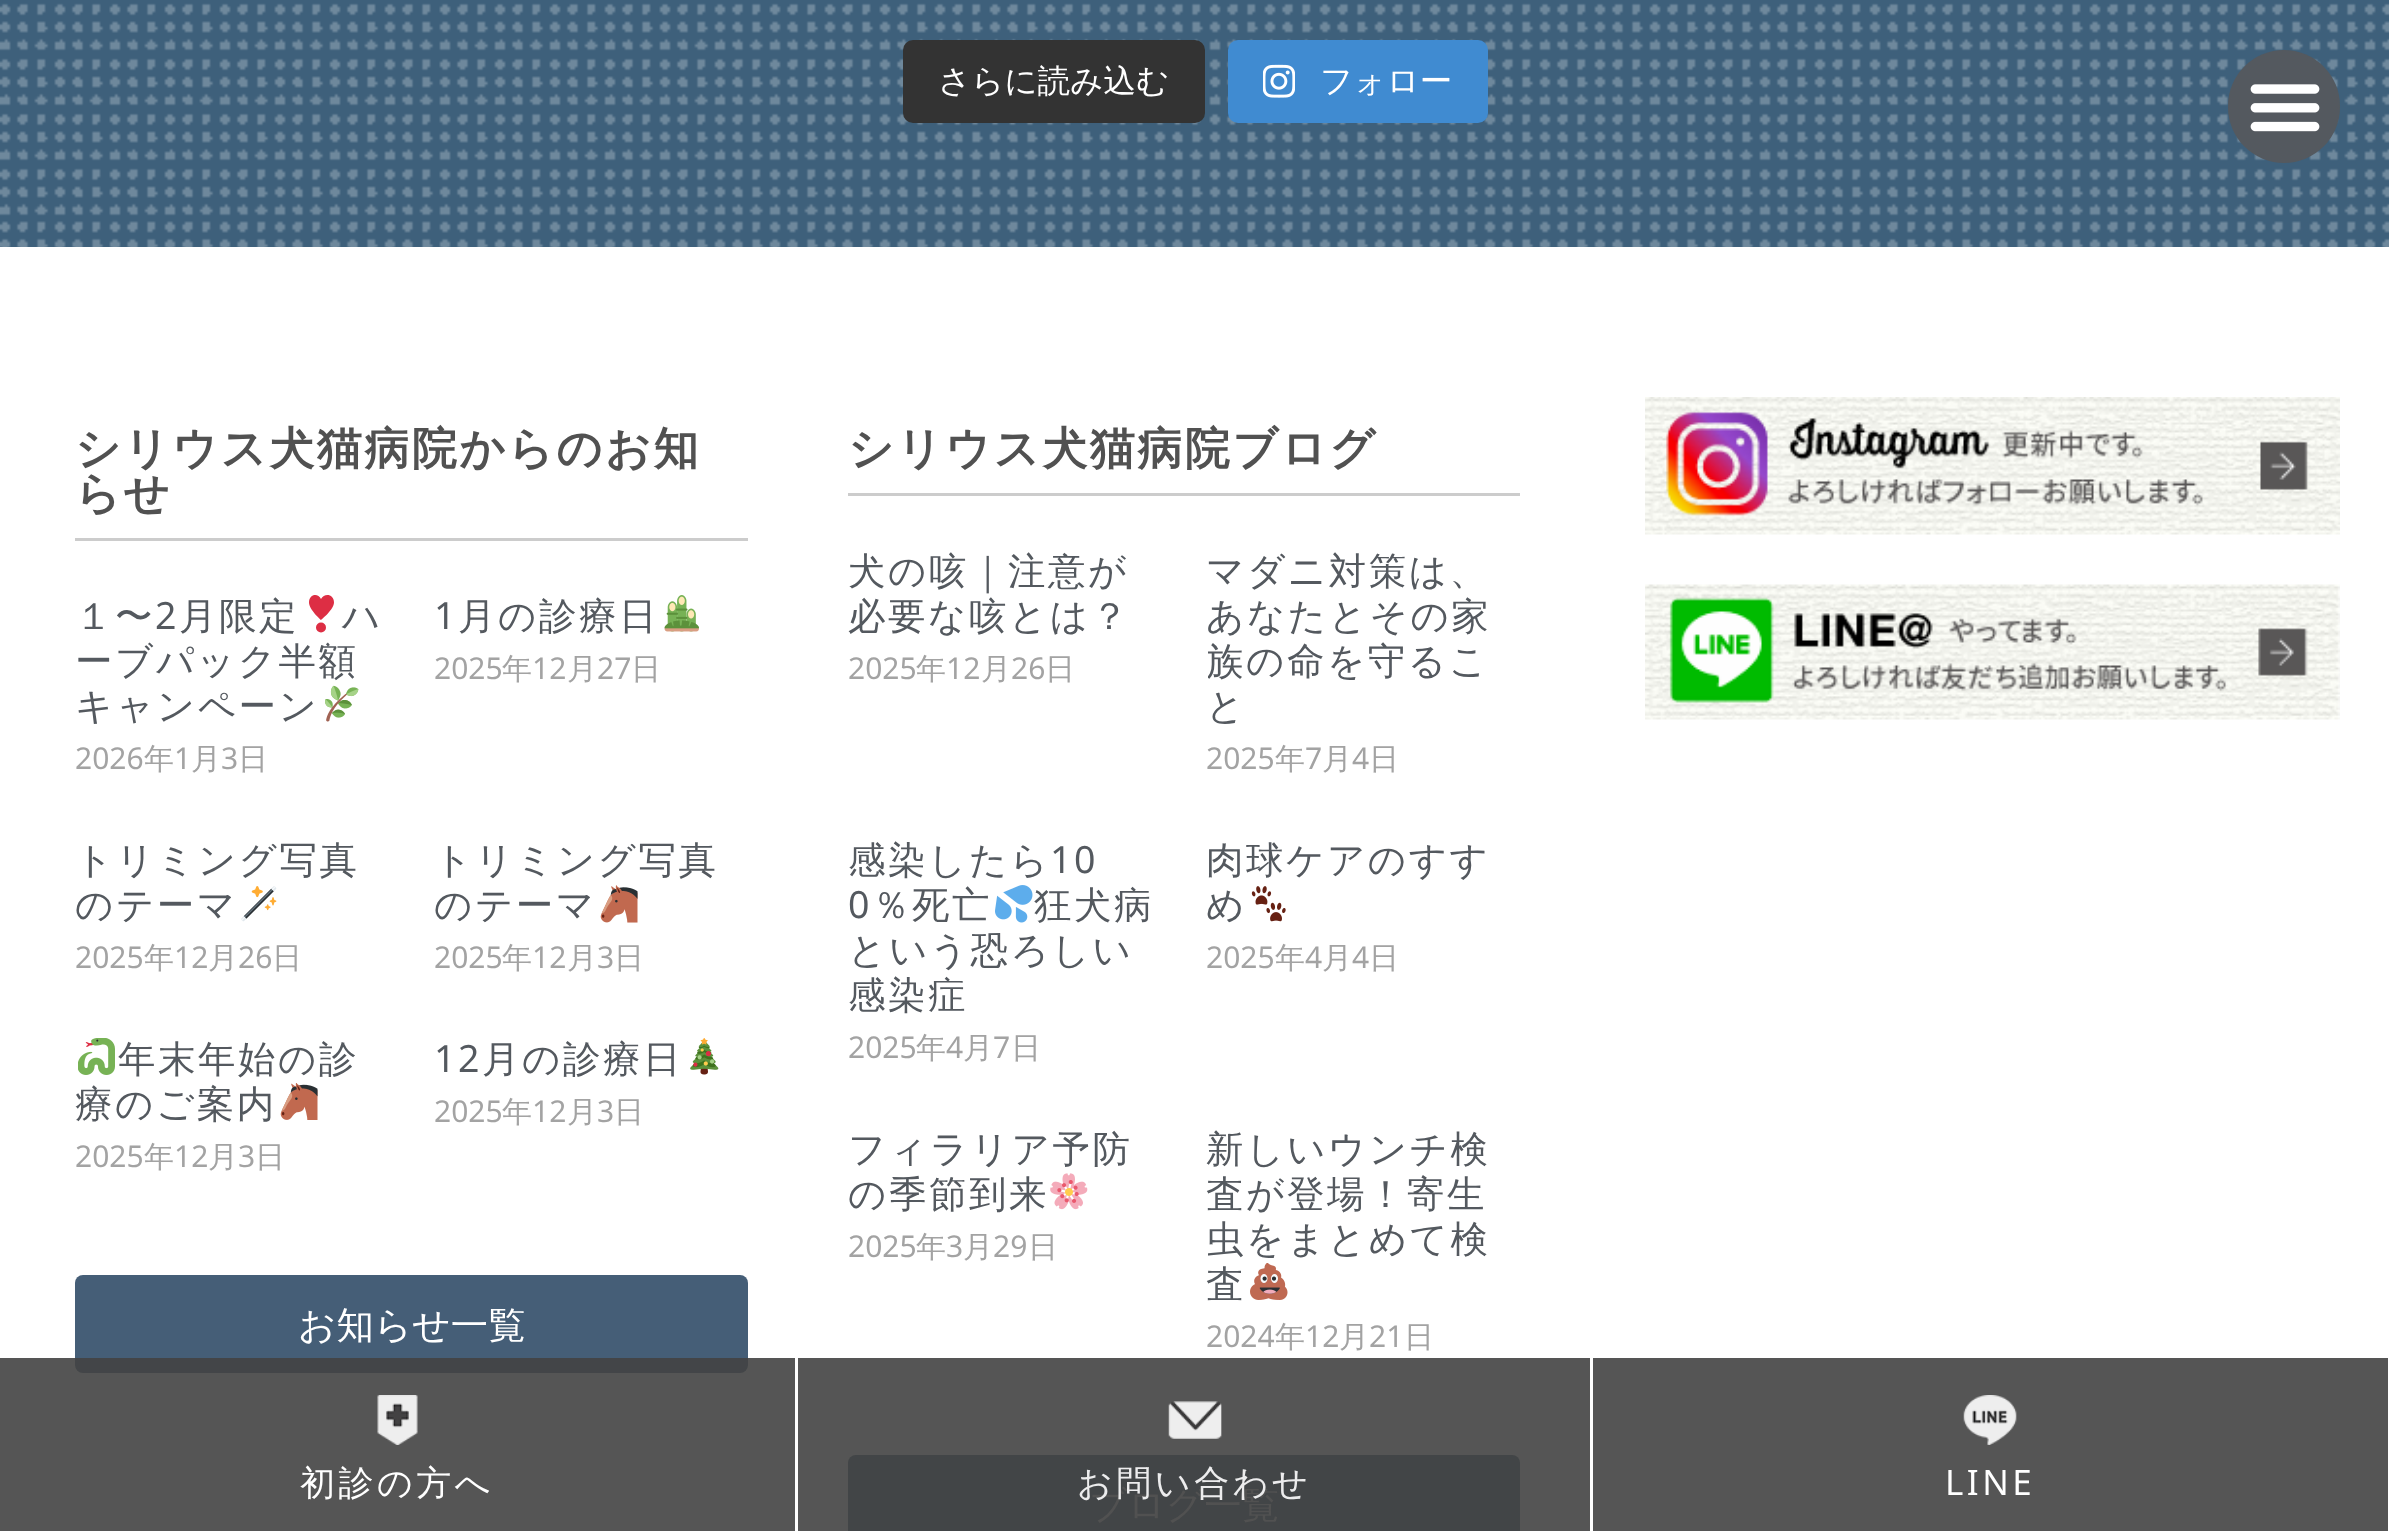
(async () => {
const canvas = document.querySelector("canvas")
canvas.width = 2389
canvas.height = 1531
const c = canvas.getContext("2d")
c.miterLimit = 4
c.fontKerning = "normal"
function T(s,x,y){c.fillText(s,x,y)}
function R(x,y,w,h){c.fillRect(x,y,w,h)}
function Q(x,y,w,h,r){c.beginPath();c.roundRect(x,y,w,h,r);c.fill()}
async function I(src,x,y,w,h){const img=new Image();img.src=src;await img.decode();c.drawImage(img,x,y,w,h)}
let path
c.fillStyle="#fff"
R(0,0,2389,1531)
c.fillStyle="#555"
R(798,1358,792,173)
await I("1.png",0,0,2389,247)
c.fillStyle="#333"
Q(903,40,302,83,10)
c.font="500 32.5px WenQuanYi Zen Hei"
c.fillStyle="#fff"
T("さらに読み込む",938,92)
c.fillStyle="#408bd1"
Q(1228,40,260,83,10)
await I("2.png",1263,64,32,34)
c.fillStyle="#fff"
T("フォロー",1320,92)
c.fillStyle="#ccc"
R(75,538,673,3)
c.letterSpacing="2.5px"
c.font="bold 45px WenQuanYi Zen Hei"
c.fillStyle="#515151"
T("シリウス犬猫病院からのお知",75,464)
T("らせ",75,509)
c.font="500 37.5px WenQuanYi Zen Hei"
c.fillStyle="#54595f"
T("１〜",75,629)
c.font="37.5px Noto Sans"
T("2",155,629)
c.font="500 37.5px WenQuanYi Zen Hei"
T("月限定",179,629)
T("ハ",342,629)
c.fillStyle="#dd2e44"
path = new Path2D("M321 599c-3-6.5-12-5-12 3.5c0 7 12 17.5 12 17.5c0 0 13-10.5 13-17.5c0-8.5-9.5-10-13-3.5z")
c.fill(path)
c.beginPath()
c.arc(321,627.5,5,0,7)
c.fill()
c.fillStyle="#54595f"
T("ーブパック半額",75,674)
T("キャンペーン",75,719)
await I("3.png",325,685,34,37)
c.letterSpacing="0px"
c.font="30px Noto Sans"
c.fillStyle="#a3a3a3"
T("2026",75,769)
c.font="500 30px WenQuanYi Zen Hei"
T("年",144,769)
c.font="30px Noto Sans"
T("1",174,769)
c.font="500 30px WenQuanYi Zen Hei"
T("月",191,769)
c.font="30px Noto Sans"
T("3",221,769)
c.font="500 30px WenQuanYi Zen Hei"
T("日",238,769)
c.letterSpacing="2.5px"
c.font="37.5px Noto Sans"
c.fillStyle="#54595f"
T("1",434,629)
c.font="500 37.5px WenQuanYi Zen Hei"
T("月の診療日",458,629)
await I("4.png",664,595,35,37)
c.letterSpacing="0px"
c.font="30px Noto Sans"
c.fillStyle="#a3a3a3"
T("2025",434,679)
c.font="500 30px WenQuanYi Zen Hei"
T("年",502,679)
c.font="30px Noto Sans"
T("12",532,679)
c.font="500 30px WenQuanYi Zen Hei"
T("月",567,679)
c.font="30px Noto Sans"
T("27",597,679)
c.font="500 30px WenQuanYi Zen Hei"
T("日",631,679)
c.letterSpacing="2.5px"
c.font="500 37.5px WenQuanYi Zen Hei"
c.fillStyle="#54595f"
T("トリミング写真",75,873)
T("のテーマ",75,918)
await I("5.png",241,886,36,36)
c.letterSpacing="0px"
c.font="30px Noto Sans"
c.fillStyle="#a3a3a3"
T("2025",75,968)
c.font="500 30px WenQuanYi Zen Hei"
T("年",144,968)
c.font="30px Noto Sans"
T("12",174,968)
c.font="500 30px WenQuanYi Zen Hei"
T("月",208,968)
c.font="30px Noto Sans"
T("26",238,968)
c.font="500 30px WenQuanYi Zen Hei"
T("日",272,968)
c.letterSpacing="2.5px"
c.font="500 37.5px WenQuanYi Zen Hei"
c.fillStyle="#54595f"
T("トリミング写真",434,873)
T("のテーマ",434,918)
await I("6.png",600,885,38,38)
c.letterSpacing="0px"
c.font="30px Noto Sans"
c.fillStyle="#a3a3a3"
T("2025",434,968)
c.font="500 30px WenQuanYi Zen Hei"
T("年",502,968)
c.font="30px Noto Sans"
T("12",532,968)
c.font="500 30px WenQuanYi Zen Hei"
T("月",567,968)
c.font="30px Noto Sans"
T("3",597,968)
c.font="500 30px WenQuanYi Zen Hei"
T("日",614,968)
await I("7.png",78,1038,37,37)
c.letterSpacing="2.5px"
c.font="500 37.5px WenQuanYi Zen Hei"
c.fillStyle="#54595f"
T("年末年始の診",118,1072)
T("療のご案内",75,1117)
await I("8.png",280,1083,38,37)
c.letterSpacing="0px"
c.font="30px Noto Sans"
c.fillStyle="#a3a3a3"
T("2025",75,1167)
c.font="500 30px WenQuanYi Zen Hei"
T("年",144,1167)
c.font="30px Noto Sans"
T("12",174,1167)
c.font="500 30px WenQuanYi Zen Hei"
T("月",208,1167)
c.font="30px Noto Sans"
T("3",238,1167)
c.font="500 30px WenQuanYi Zen Hei"
T("日",255,1167)
c.letterSpacing="2.5px"
c.font="37.5px Noto Sans"
c.fillStyle="#54595f"
T("12",434,1072)
c.font="500 37.5px WenQuanYi Zen Hei"
T("月の診療日",482,1072)
await I("9.png",690,1038,29,37)
c.letterSpacing="0px"
c.font="30px Noto Sans"
c.fillStyle="#a3a3a3"
T("2025",434,1122)
c.font="500 30px WenQuanYi Zen Hei"
T("年",502,1122)
c.font="30px Noto Sans"
T("12",532,1122)
c.font="500 30px WenQuanYi Zen Hei"
T("月",567,1122)
c.font="30px Noto Sans"
T("3",597,1122)
c.font="500 30px WenQuanYi Zen Hei"
T("日",614,1122)
c.fillStyle="#455e77"
Q(75,1275,673,98,8)
c.font="500 37.5px WenQuanYi Zen Hei"
c.fillStyle="#fff"
T("お知らせ一覧",298,1338)
c.fillStyle="#ccc"
R(848,493,672,3)
c.letterSpacing="2.5px"
c.font="bold 45px WenQuanYi Zen Hei"
c.fillStyle="#515151"
T("シリウス犬猫病院ブログ",848,464)
c.font="500 37.5px WenQuanYi Zen Hei"
c.fillStyle="#54595f"
T("犬の咳｜注意が",848,584)
T("必要な咳とは？",848,629)
c.letterSpacing="0px"
c.font="30px Noto Sans"
c.fillStyle="#a3a3a3"
T("2025",848,679)
c.font="500 30px WenQuanYi Zen Hei"
T("年",916,679)
c.font="30px Noto Sans"
T("12",946,679)
c.font="500 30px WenQuanYi Zen Hei"
T("月",981,679)
c.font="30px Noto Sans"
T("26",1011,679)
c.font="500 30px WenQuanYi Zen Hei"
T("日",1045,679)
c.letterSpacing="2.5px"
c.font="500 37.5px WenQuanYi Zen Hei"
c.fillStyle="#54595f"
T("マダニ対策は、",1206,584)
T("あなたとその家",1206,629)
c.save()
c.beginPath()
c.rect(1208,545,312,283)
c.clip()
T("族の命を守るこ",1206,674)
c.restore()
T("と",1206,719)
c.letterSpacing="0px"
c.font="30px Noto Sans"
c.fillStyle="#a3a3a3"
T("2025",1206,769)
c.font="500 30px WenQuanYi Zen Hei"
T("年",1275,769)
c.font="30px Noto Sans"
T("7",1305,769)
c.font="500 30px WenQuanYi Zen Hei"
T("月",1322,769)
c.font="30px Noto Sans"
T("4",1352,769)
c.font="500 30px WenQuanYi Zen Hei"
T("日",1369,769)
c.letterSpacing="2.5px"
c.font="500 37.5px WenQuanYi Zen Hei"
c.fillStyle="#54595f"
T("感染したら",848,873)
c.font="37.5px Noto Sans"
T("10",1050,873)
T("0",848,918)
c.font="500 37.5px WenQuanYi Zen Hei"
T("％死亡",872,918)
await I("10.png",995,885,38,38)
T("狂犬病",1034,918)
T("という恐ろしい",848,963)
T("感染症",848,1008)
c.letterSpacing="0px"
c.font="30px Noto Sans"
c.fillStyle="#a3a3a3"
T("2025",848,1058)
c.font="500 30px WenQuanYi Zen Hei"
T("年",916,1058)
c.font="30px Noto Sans"
T("4",946,1058)
c.font="500 30px WenQuanYi Zen Hei"
T("月",963,1058)
c.font="30px Noto Sans"
T("7",993,1058)
c.font="500 30px WenQuanYi Zen Hei"
T("日",1011,1058)
c.letterSpacing="2.5px"
c.font="500 37.5px WenQuanYi Zen Hei"
c.fillStyle="#54595f"
T("肉球ケアのすす",1206,873)
T("め",1206,918)
await I("11.png",1251,886,35,36)
c.letterSpacing="0px"
c.font="30px Noto Sans"
c.fillStyle="#a3a3a3"
T("2025",1206,968)
c.font="500 30px WenQuanYi Zen Hei"
T("年",1275,968)
c.font="30px Noto Sans"
T("4",1305,968)
c.font="500 30px WenQuanYi Zen Hei"
T("月",1322,968)
c.font="30px Noto Sans"
T("4",1352,968)
c.font="500 30px WenQuanYi Zen Hei"
T("日",1369,968)
c.letterSpacing="2.5px"
c.font="500 37.5px WenQuanYi Zen Hei"
c.fillStyle="#54595f"
T("フィラリア予防",848,1162)
T("の季節到来",848,1207)
await I("12.png",1050,1173,38,37)
c.letterSpacing="0px"
c.font="30px Noto Sans"
c.fillStyle="#a3a3a3"
T("2025",848,1257)
c.font="500 30px WenQuanYi Zen Hei"
T("年",916,1257)
c.font="30px Noto Sans"
T("3",946,1257)
c.font="500 30px WenQuanYi Zen Hei"
T("月",963,1257)
c.font="30px Noto Sans"
T("29",993,1257)
c.font="500 30px WenQuanYi Zen Hei"
T("日",1028,1257)
c.letterSpacing="2.5px"
c.font="500 37.5px WenQuanYi Zen Hei"
c.fillStyle="#54595f"
T("新しいウンチ検",1206,1162)
T("査が登場！寄生",1206,1207)
c.save()
c.beginPath()
c.rect(1208,1125,312,280)
c.clip()
T("虫をまとめて検",1206,1252)
c.restore()
T("査",1206,1297)
await I("13.png",1250,1263,38,37)
c.letterSpacing="0px"
c.font="30px Noto Sans"
c.fillStyle="#a3a3a3"
T("2024",1206,1347)
c.font="500 30px WenQuanYi Zen Hei"
T("年",1275,1347)
c.font="30px Noto Sans"
T("12",1305,1347)
c.font="500 30px WenQuanYi Zen Hei"
T("月",1339,1347)
c.font="30px Noto Sans"
T("21",1369,1347)
c.font="500 30px WenQuanYi Zen Hei"
T("日",1404,1347)
c.fillStyle="#424547"
Q(848,1455,672,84,8)
c.font="500 37.5px WenQuanYi Zen Hei"
c.fillStyle="#515151"
T("ブログ一覧",1089,1518)
await I("14.png",1645,397,695,138)
await I("15.png",1645,584,695,136)
c.fillStyle="#54595f"
Q(2228,50,112,113,56)
await I("16.png",2250,84,70,48)
c.fillStyle="#424242e6"
R(0,1358,795,173)
await I("17.png",377,1395,41,50)
c.letterSpacing="3.5px"
c.font="500 35px WenQuanYi Zen Hei"
c.fillStyle="#fff"
T("初診の方へ",300,1495)
await I("18.png",1168,1401,54,38)
c.fillStyle="#ececed"
T("お問い合わせ",1077,1495)
c.fillStyle="#555"
R(1593,1358,795,173)
await I("19.png",1963,1395,54,50)
c.font="35px Noto Sans"
c.fillStyle="#fff"
T("LINE",1945,1495)
})()
